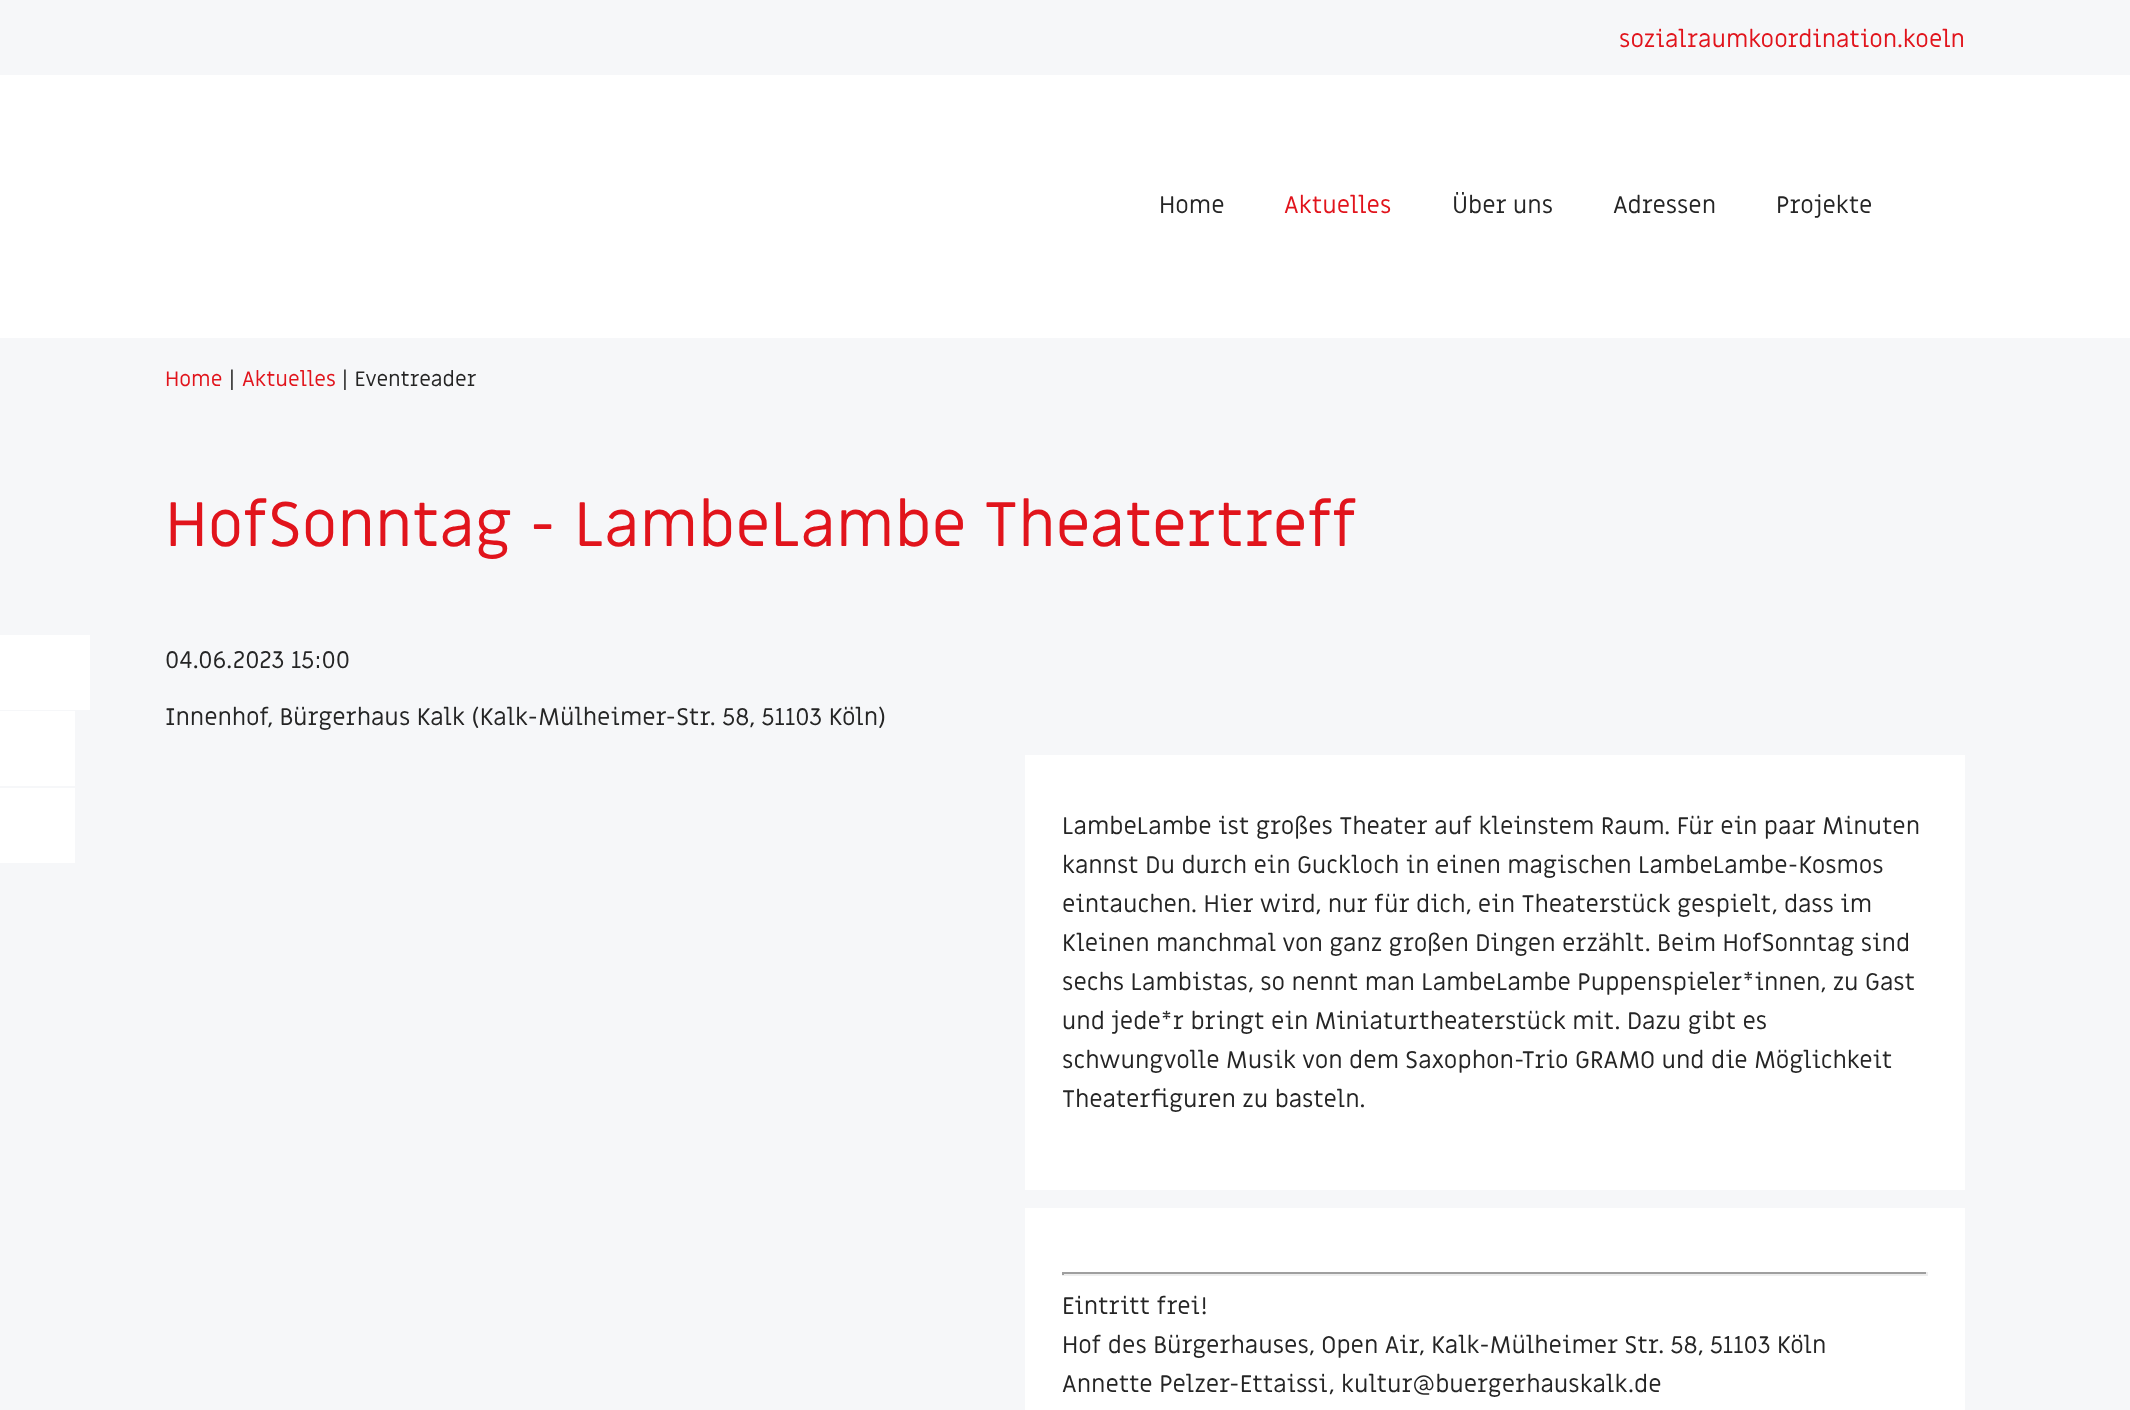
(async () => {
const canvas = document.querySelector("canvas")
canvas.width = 2130
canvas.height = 1410
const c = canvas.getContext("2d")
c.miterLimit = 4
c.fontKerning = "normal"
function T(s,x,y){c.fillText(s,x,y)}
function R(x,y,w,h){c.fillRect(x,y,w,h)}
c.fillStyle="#f6f7f9"
R(0,0,2130,1410)
c.font="24px Miriam Libre"
c.fillStyle="#e1141c"
T("sozialraumkoordination.koeln",1619,47)
c.fillStyle="#fff"
R(0,635,90,75)
R(0,711,75,75)
R(0,788,75,75)
R(0,75,2130,263)
c.fillStyle="#252525"
T("Home",1159,213)
c.fillStyle="#e1141c"
T("Aktuelles",1284,213)
c.fillStyle="#252525"
T("Über uns",1452,213)
T("Adressen",1613,213)
T("Projekte",1776,213)
c.font="21px Miriam Libre"
c.fillStyle="#e1141c"
T("Home",165,386)
c.fillStyle="#252525"
T("|",228,386)
c.fillStyle="#e1141c"
T("Aktuelles",242,386)
c.fillStyle="#252525"
T("| Eventreader",341,386)
c.font="63px Miriam Libre"
c.fillStyle="#e1141c"
T("HofSonntag - LambeLambe Theatertreff",165,546)
c.font="24px Miriam Libre"
c.fillStyle="#252525"
T("04.06.2023 15:00",165,668)
T("Innenhof, Bürgerhaus Kalk (Kalk-Mülheimer-Str. 58, 51103 Köln)",165,725)
c.fillStyle="#fff"
R(1025,755,940,435)
c.fillStyle="#252525"
T("LambeLambe ist großes Theater auf kleinstem Raum. Für ein paar Minuten",1062,834)
T("kannst Du durch ein Guckloch in einen magischen LambeLambe-Kosmos",1062,873)
T("eintauchen. Hier wird, nur für dich, ein Theaterstück gespielt, dass im",1062,912)
T("Kleinen manchmal von ganz großen Dingen erzählt. Beim HofSonntag sind",1062,951)
T("sechs Lambistas, so nennt man LambeLambe Puppenspieler*innen, zu Gast",1062,990)
T("und jede*r bringt ein Miniaturtheaterstück mit. Dazu gibt es",1062,1029)
T("schwungvolle Musik von dem Saxophon-Trio GRAMO und die Möglichkeit",1062,1068)
T("Theaterfiguren zu basteln.",1062,1107)
c.fillStyle="#fff"
R(1025,1208,940,202)
c.fillStyle="#9f9f9f"
R(1062,1272,866,2)
c.fillStyle="#eee"
R(1926,1272,2,3)
R(1062,1274,866,2)
c.fillStyle="#9f9f9f"
R(1062,1272,2,3)
c.fillStyle="#252525"
T("Eintritt frei!",1062,1314)
T("Hof des Bürgerhauses, Open Air, Kalk-Mülheimer Str. 58, 51103 Köln",1062,1353)
T("Annette Pelzer-Ettaissi, kultur@buergerhauskalk.de",1062,1392)
})()
